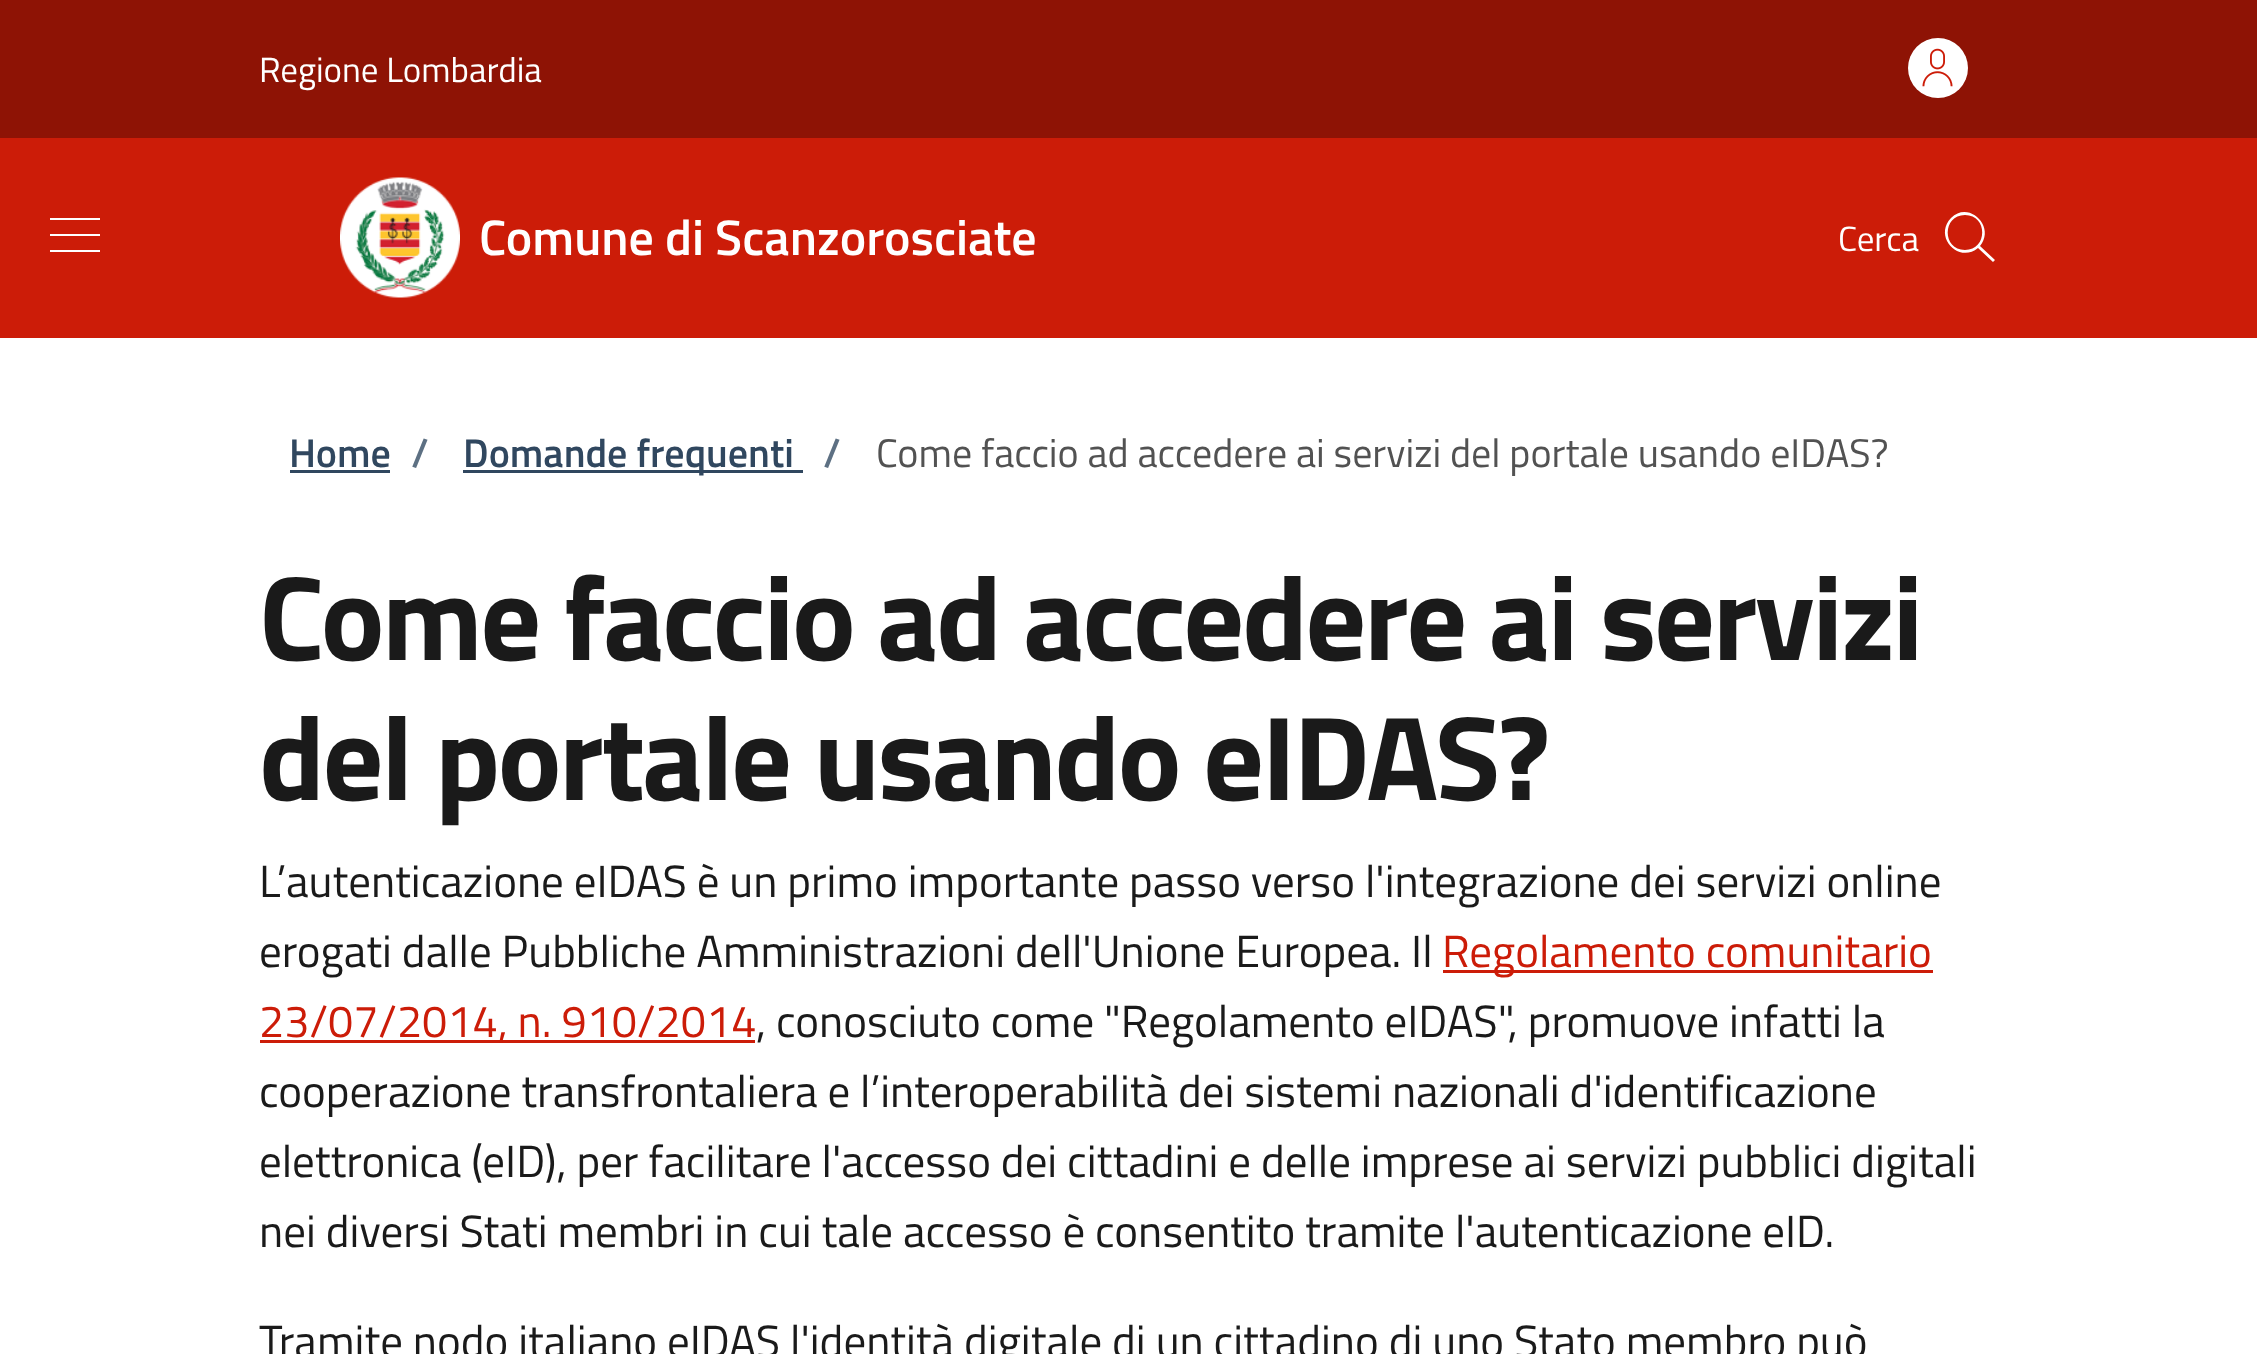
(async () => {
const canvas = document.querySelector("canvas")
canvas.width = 2257
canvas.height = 1354
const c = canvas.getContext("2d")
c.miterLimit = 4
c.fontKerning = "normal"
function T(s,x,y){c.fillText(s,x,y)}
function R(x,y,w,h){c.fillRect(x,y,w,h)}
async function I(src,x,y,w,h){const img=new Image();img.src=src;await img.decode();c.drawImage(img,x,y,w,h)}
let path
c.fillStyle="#fff"
R(0,0,2257,1354)
c.fillStyle="#8e1305"
R(0,0,2257,138)
c.font="35px Titillium Web"
c.fillStyle="#fff"
T("Regione Lombardia",259,82)
c.beginPath()
c.arc(1938,68,30,0,7)
c.fill()
await I("1.png",1922,48,31,39)
c.fillStyle="#cc1c08"
R(0,138,2257,200)
c.fillStyle="#fff"
path = new Path2D("M100 218v2h-50v-2zm-50 18h50v-2h-50zm0 16h50v-2h-50z")
c.fill(path)
await I("2.png",340,177,120,121)
c.font="600 50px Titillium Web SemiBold"
T("Comune di Scanzorosciate",479,255)
c.font="35px Titillium Web"
T("Cerca",1838,251)
path = new Path2D("M1995 260l-15-14c16-19-11-46-29-28c-18 19 8 46 27 30l15 14zm-30-10c-23 0-23-35 0-35c23 0 23 35 0 35z")
c.fill(path)
c.font="600 40px Titillium Web SemiBold"
c.fillStyle="#30475f"
T("Home",289,467)
R(290,470,100,3)
c.fillStyle="#5d7083"
T("/",411,467)
c.fillStyle="#30475f"
R(463,470,340,3)
T("Domande frequenti",463,467)
c.fillStyle="#5d7083"
T("/",823,467)
c.font="40px Titillium Web"
c.fillStyle="#525252"
T("Come faccio ad accedere ai servizi del portale usando eIDAS?",876,467)
c.letterSpacing="-2.5px"
c.font="bold 120px Titillium Web"
c.fillStyle="#1a1a1a"
T("Come faccio ad accedere ai servizi",259,660)
T("del portale usando eIDAS?",259,800)
c.letterSpacing="0px"
c.font="45px Titillium Web"
T("L’autenticazione eIDAS è un primo importante passo verso l'integrazione dei servizi online",259,897)
T("erogati dalle Pubbliche Amministrazioni dell'Unione Europea. Il",259,967)
c.fillStyle="#cc1c08"
R(1443,970,490,3)
T("Regolamento comunitario",1442,967)
R(260,1040,495,3)
T("23/07/2014, n. 910/2014",259,1037)
c.fillStyle="#1a1a1a"
T(", conosciuto come \"Regolamento eIDAS\", promuove infatti la",756,1037)
T("cooperazione transfrontaliera e l’interoperabilità dei sistemi nazionali d'identificazione",259,1107)
T("elettronica (eID), per facilitare l'accesso dei cittadini e delle imprese ai servizi pubblici digitali",259,1177)
T("nei diversi Stati membri in cui tale accesso è consentito tramite l'autenticazione eID.",259,1247)
T("Tramite nodo italiano eIDAS l'identità digitale di un cittadino di uno Stato membro può",259,1357)
})()
